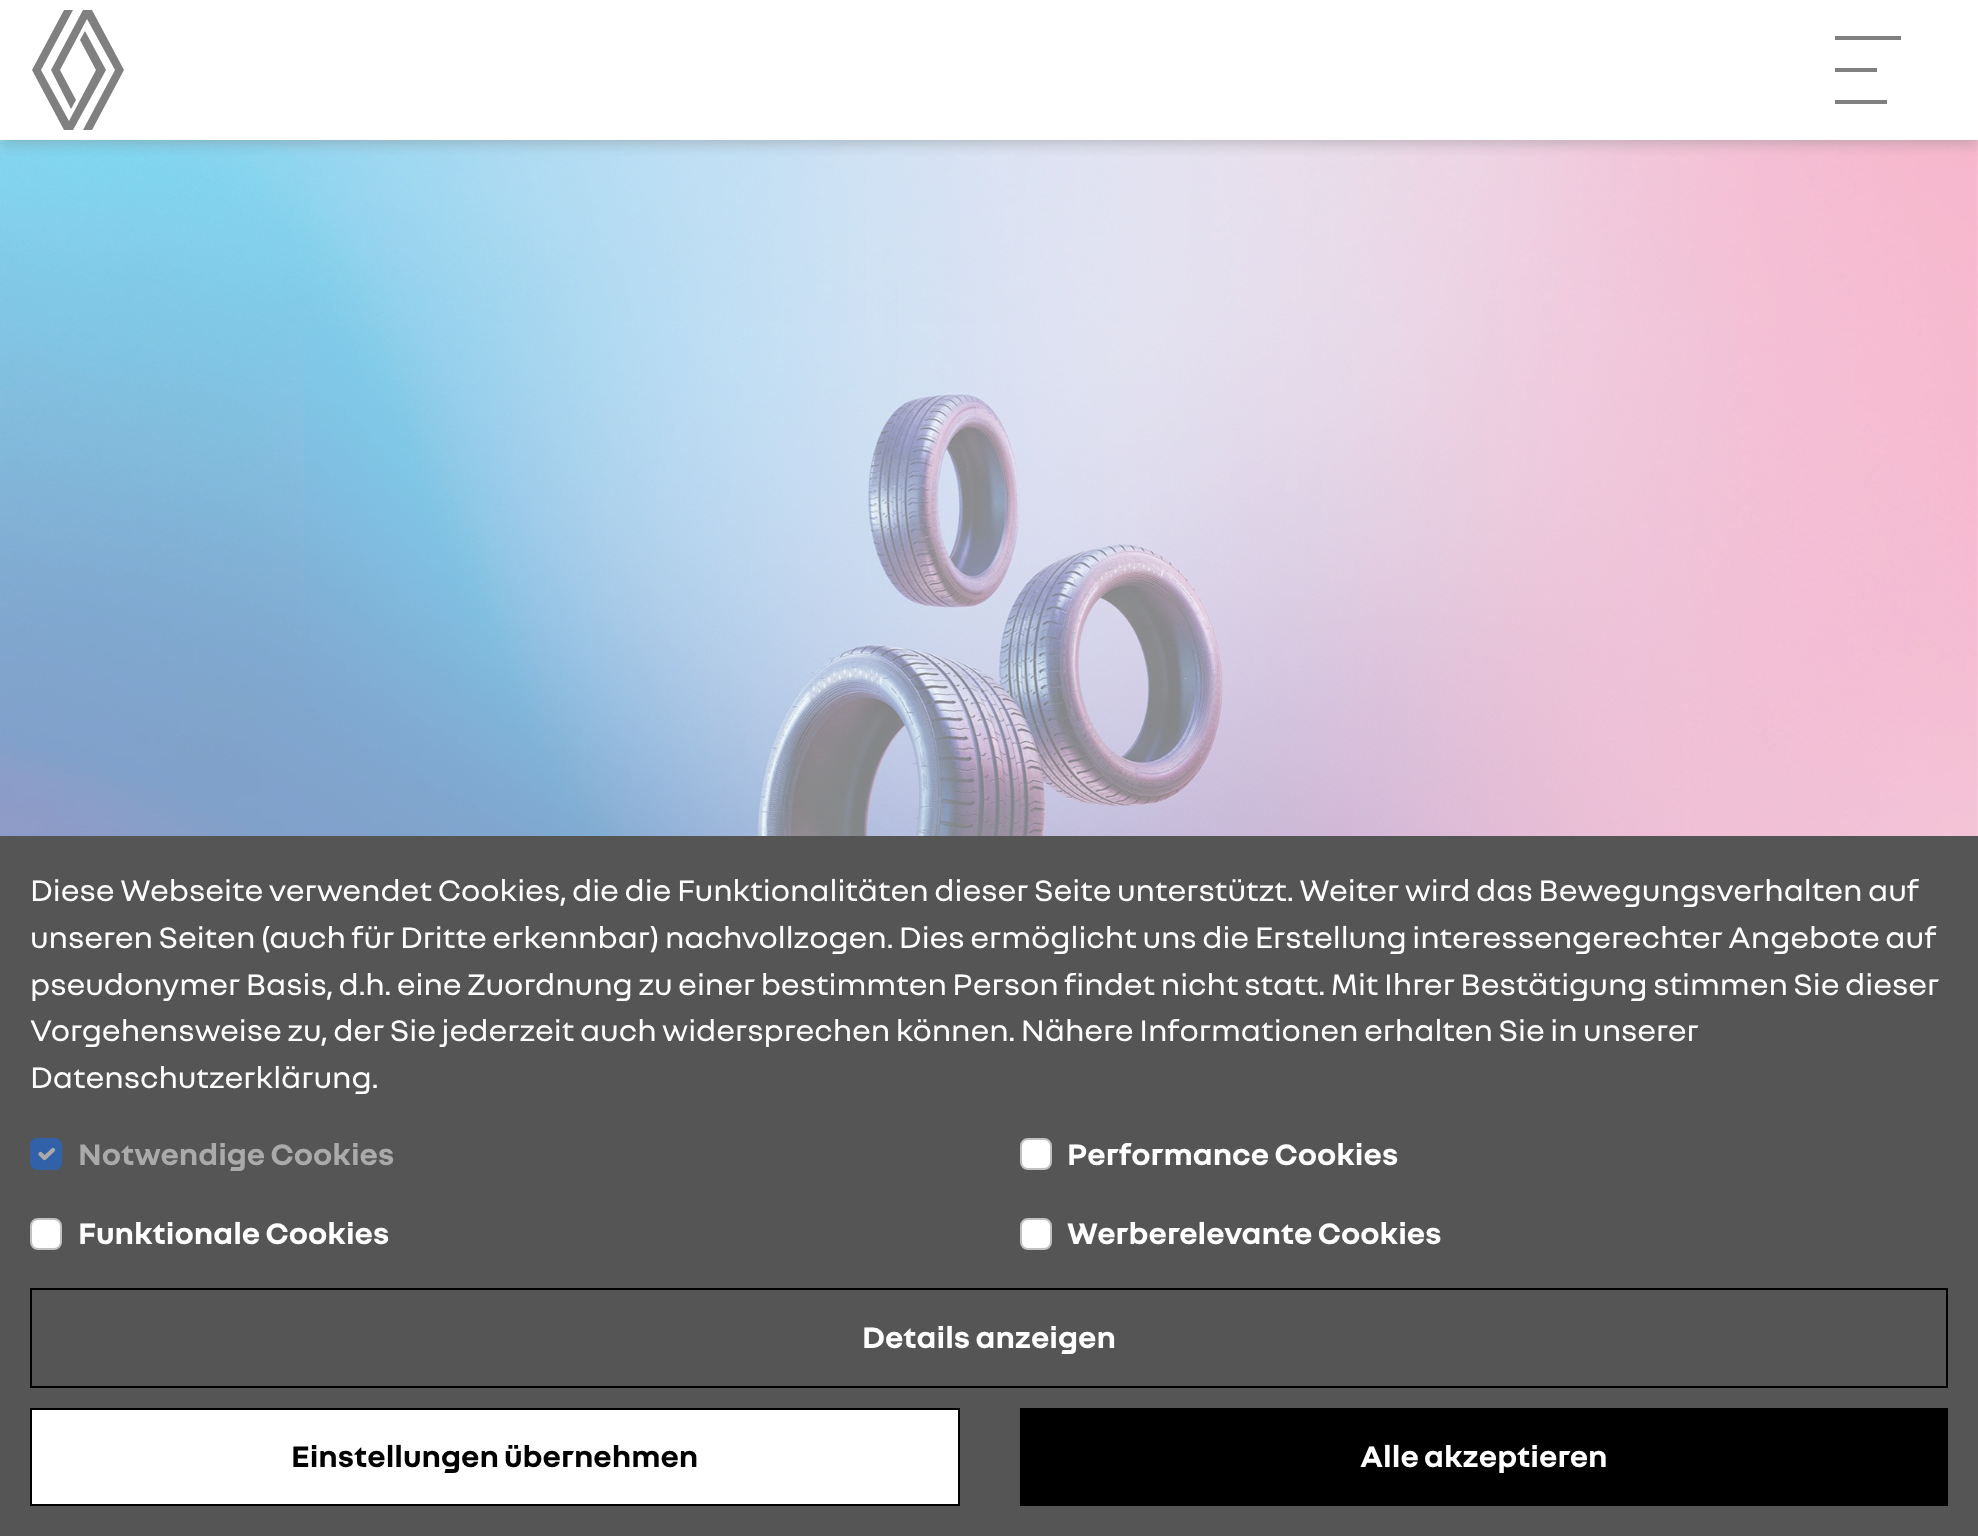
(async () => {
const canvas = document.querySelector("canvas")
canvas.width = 1978
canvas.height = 1536
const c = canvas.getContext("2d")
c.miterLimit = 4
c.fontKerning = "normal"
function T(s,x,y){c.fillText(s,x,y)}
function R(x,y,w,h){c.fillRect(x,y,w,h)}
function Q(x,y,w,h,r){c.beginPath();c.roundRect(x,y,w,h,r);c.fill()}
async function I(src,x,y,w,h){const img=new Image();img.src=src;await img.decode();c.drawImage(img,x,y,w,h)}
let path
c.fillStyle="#fff"
R(0,0,1978,1536)
await I("1.png",0,140,1978,696)
c.save()
c.beginPath()
c.rect(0,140,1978,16)
c.clip()
c.fillStyle="#80808066"
c.filter="blur(7px)"
c.beginPath()
c.rect(0,4,1978,140)
c.fill()
c.filter="none"
c.restore()
c.fillStyle="#808080"
path = new Path2D("M106 70l-33 60h-9l-32-60l32-60h9l-32 60l28 51l27-51l-16-30l5-9zm-14-60h-9l-32 60l20 39l5-9l-16-30l27-51l28 51l-32 60h9l32-60z")
c.fill(path)
path = new Path2D("M1901 36v4h-66v-4zm-24 32h-42v4h42zm-42 36h52v-4h-52z")
c.fill(path)
c.fillStyle="#555"
R(0,836,1978,700)
c.font="32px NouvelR"
c.fillStyle="#fff"
T("Diese Webseite verwendet Cookies, die die Funktionalitäten dieser Seite unterstützt. Weiter wird das Bewegungsverhalten auf",30,901)
T("unseren Seiten (auch für Dritte erkennbar) nachvollzogen. Dies ermöglicht uns die Erstellung interessengerechter Angebote auf",30,948)
T("pseudonymer Basis, d.h. eine Zuordnung zu einer bestimmten Person findet nicht statt. Mit Ihrer Bestätigung stimmen Sie dieser",30,995)
T("Vorgehensweise zu, der Sie jederzeit auch widersprechen können. Nähere Informationen erhalten Sie in unserer",30,1041)
T("Datenschutzerklärung.",30,1088)
c.fillStyle="#3162a9"
Q(30,1138,32,32,8)
path = new Path2D("M40.5 1154l4 4l8.5-8")
c.strokeStyle="#aaa"
c.lineWidth=4.2
c.lineCap="round"
c.lineJoin="round"
c.stroke(path)
c.beginPath()
c.roundRect(31,1139,30,30,7)
c.strokeStyle="#3162a9"
c.lineWidth=2
c.lineJoin="miter"
c.stroke()
c.font="bold 32px NouvelR"
c.fillStyle="#aaa"
T("Notwendige Cookies",78,1165)
c.fillStyle="#fff"
c.beginPath()
c.roundRect(1021,1139,30,30,7)
c.fill()
c.strokeStyle="#c0c0c0"
c.stroke()
T("Performance Cookies",1067,1165)
c.beginPath()
c.roundRect(31,1219,30,30,7)
c.fill()
c.stroke()
T("Funktionale Cookies",78,1244)
c.beginPath()
c.roundRect(1021,1219,30,30,7)
c.fill()
c.stroke()
T("Werberelevante Cookies",1067,1244)
c.strokeStyle="#000"
c.strokeRect(31,1289,1916,98)
T("Details anzeigen",862,1348)
c.beginPath()
c.rect(31,1409,928,96)
c.fill()
c.stroke()
c.fillStyle="#000"
T("Einstellungen übernehmen",291,1467)
R(1020,1408,928,98)
c.fillStyle="#fff"
T("Alle akzeptieren",1360,1467)
})()
